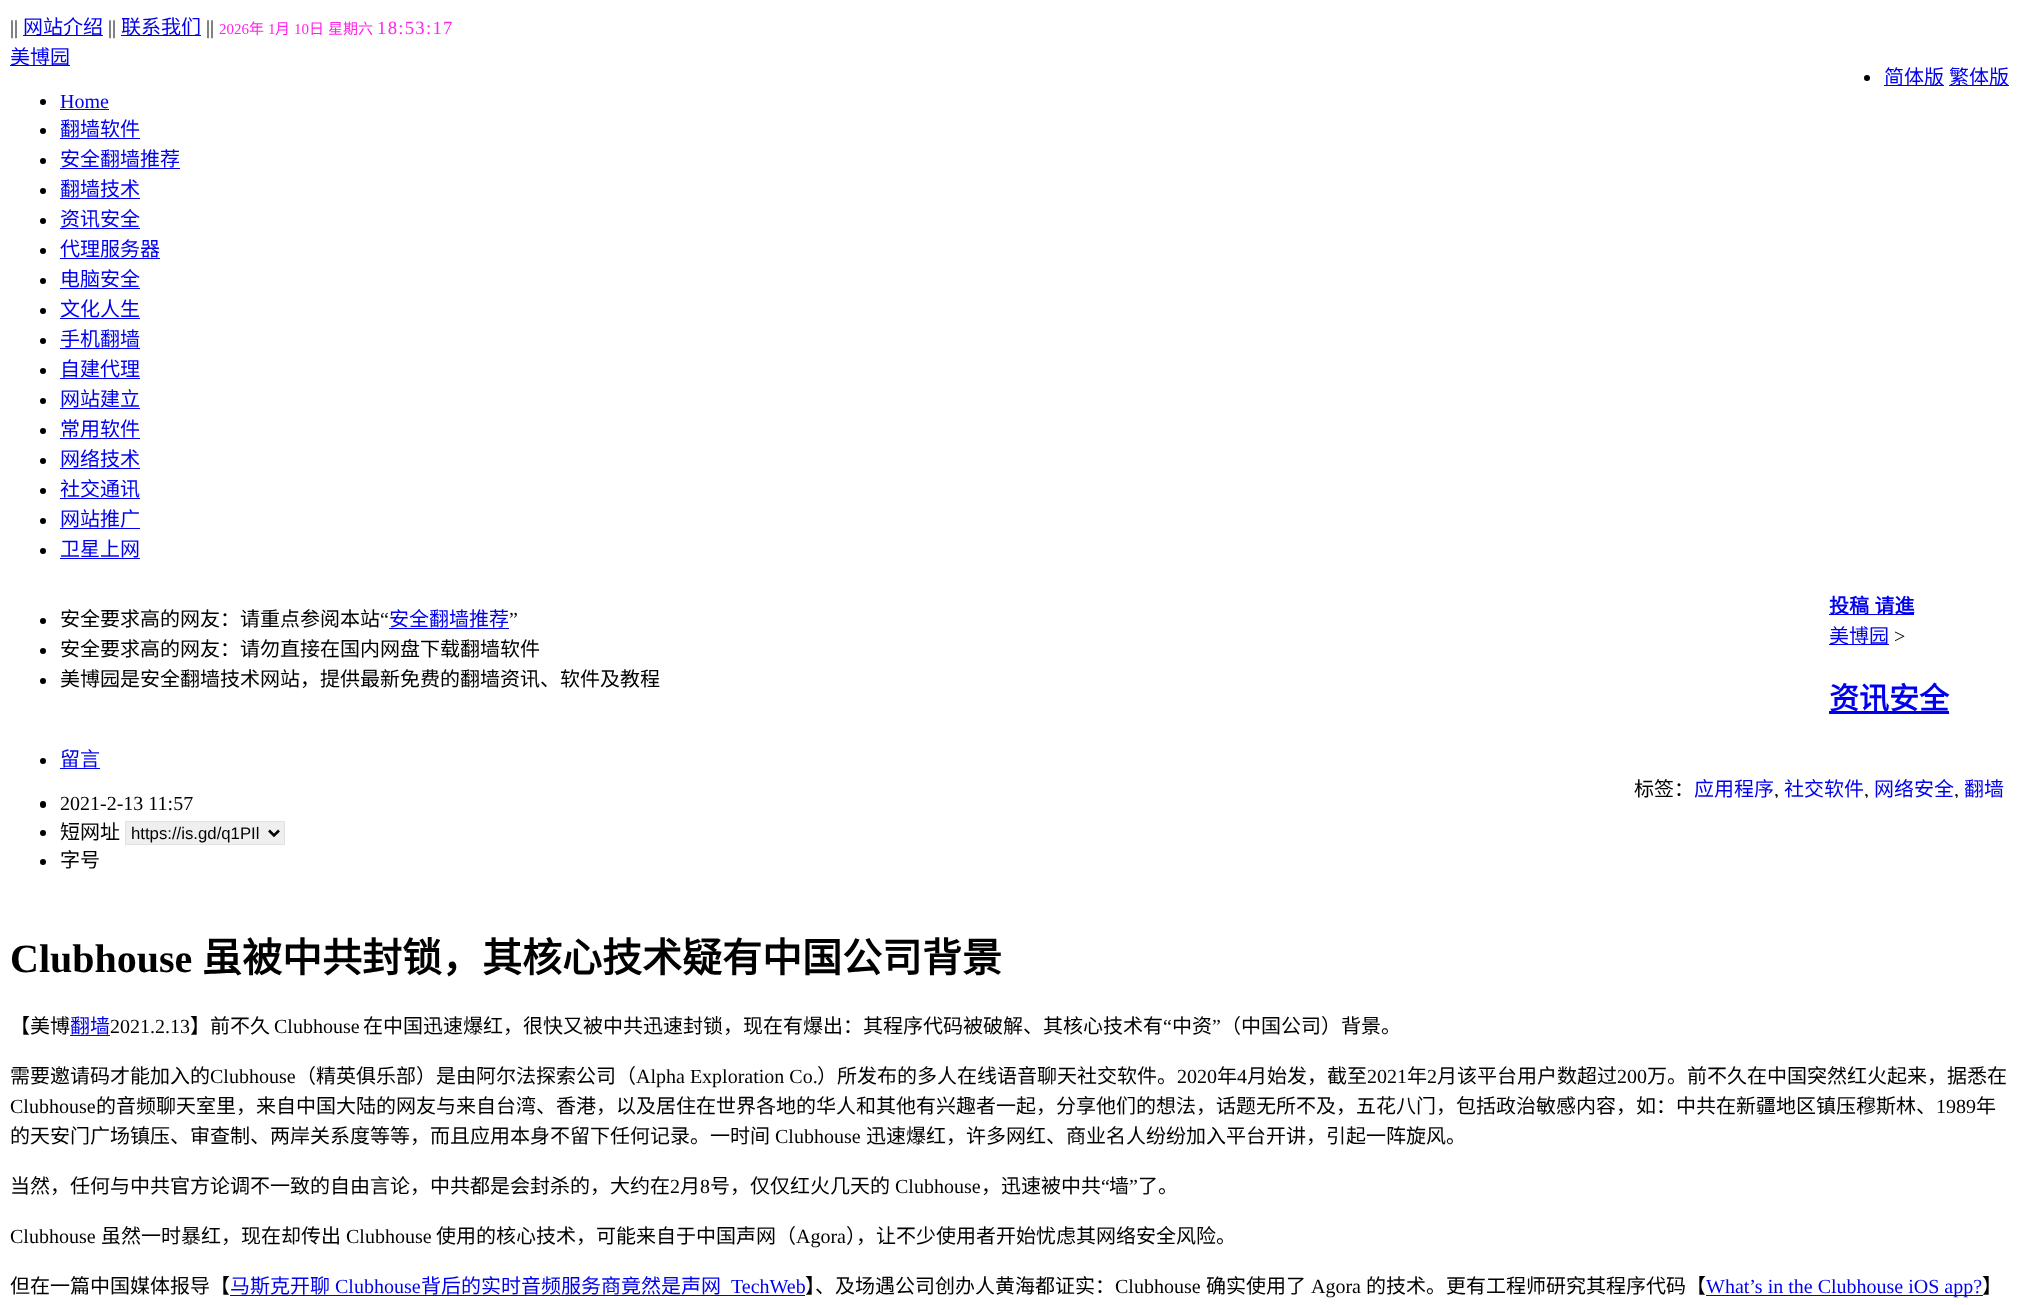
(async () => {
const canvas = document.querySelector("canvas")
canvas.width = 2018
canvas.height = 1305
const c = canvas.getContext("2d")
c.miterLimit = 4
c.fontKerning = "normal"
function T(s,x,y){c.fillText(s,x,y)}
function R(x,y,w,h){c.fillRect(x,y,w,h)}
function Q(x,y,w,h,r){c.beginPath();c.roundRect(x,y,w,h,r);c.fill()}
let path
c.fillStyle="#fff"
R(0,0,2018,1305)
c.font="20px Liberation Serif"
c.fillStyle="#000"
T("||",10,34)
c.fillStyle="#00e"
R(23,35,80,1)
c.font="20px Noto Sans CJK SC"
T("网站介绍",23,34)
c.font="20px Liberation Serif"
c.fillStyle="#000"
T("||",108,34)
c.fillStyle="#00e"
R(121,35,80,1)
c.font="20px Noto Sans CJK SC"
T("联系我们",121,34)
c.font="20px Liberation Serif"
c.fillStyle="#000"
T("||",206,34)
c.font="15px Liberation Serif"
c.fillStyle="#ff24e9"
T("2026",219,34)
c.font="15px Noto Sans CJK SC"
T("年",249,34)
c.font="15px Liberation Serif"
T("1",268,34)
c.font="15px Noto Sans CJK SC"
T("月",275,34)
c.font="15px Liberation Serif"
T("10",294,34)
c.font="15px Noto Sans CJK SC"
T("日",309,34)
T("星期六",328,34)
c.letterSpacing="1.25px"
c.font="18.75px Liberation Serif"
T("18:53:17",377,34)
c.fillStyle="#000"
c.beginPath()
c.arc(1867,78,3,0,7)
c.fill()
c.fillStyle="#00e"
R(1884,85,60,1)
c.letterSpacing="0px"
c.font="20px Noto Sans CJK SC"
T("简体版",1884,84)
R(1949,85,60,1)
T("繁体版",1949,84)
R(10,65,60,1)
T("美博园",10,64)
c.fillStyle="#000"
c.beginPath()
c.arc(43,102,3,0,7)
c.fill()
c.font="20px Liberation Serif"
c.fillStyle="#00e"
T("Home",60,108)
R(60,109,49,1)
c.fillStyle="#000"
c.beginPath()
c.arc(43,131,3,0,7)
c.fill()
c.font="20px Noto Sans CJK SC"
c.fillStyle="#00e"
T("翻墙软件",60,136)
R(60,138,80,1)
c.fillStyle="#000"
c.beginPath()
c.arc(43,161,3,0,7)
c.fill()
c.fillStyle="#00e"
T("安全翻墙推荐",60,166)
R(60,168,120,1)
c.fillStyle="#000"
c.beginPath()
c.arc(43,191,3,0,7)
c.fill()
c.fillStyle="#00e"
T("翻墙技术",60,196)
R(60,198,80,1)
c.fillStyle="#000"
c.beginPath()
c.arc(43,221,3,0,7)
c.fill()
c.fillStyle="#00e"
T("资讯安全",60,226)
R(60,228,80,1)
c.fillStyle="#000"
c.beginPath()
c.arc(43,251,3,0,7)
c.fill()
c.fillStyle="#00e"
T("代理服务器",60,256)
R(60,258,100,1)
c.fillStyle="#000"
c.beginPath()
c.arc(43,281,3,0,7)
c.fill()
c.fillStyle="#00e"
T("电脑安全",60,286)
R(60,288,80,1)
c.fillStyle="#000"
c.beginPath()
c.arc(43,311,3,0,7)
c.fill()
c.fillStyle="#00e"
T("文化人生",60,316)
R(60,318,80,1)
c.fillStyle="#000"
c.beginPath()
c.arc(43,341,3,0,7)
c.fill()
c.fillStyle="#00e"
T("手机翻墙",60,346)
R(60,348,80,1)
c.fillStyle="#000"
c.beginPath()
c.arc(43,371,3,0,7)
c.fill()
c.fillStyle="#00e"
T("自建代理",60,376)
R(60,378,80,1)
c.fillStyle="#000"
c.beginPath()
c.arc(43,401,3,0,7)
c.fill()
c.fillStyle="#00e"
T("网站建立",60,406)
R(60,408,80,1)
c.fillStyle="#000"
c.beginPath()
c.arc(43,431,3,0,7)
c.fill()
c.fillStyle="#00e"
T("常用软件",60,436)
R(60,438,80,1)
c.fillStyle="#000"
c.beginPath()
c.arc(43,461,3,0,7)
c.fill()
c.fillStyle="#00e"
T("网络技术",60,466)
R(60,468,80,1)
c.fillStyle="#000"
c.beginPath()
c.arc(43,491,3,0,7)
c.fill()
c.fillStyle="#00e"
T("社交通讯",60,496)
R(60,498,80,1)
c.fillStyle="#000"
c.beginPath()
c.arc(43,521,3,0,7)
c.fill()
c.fillStyle="#00e"
T("网站推广",60,526)
R(60,528,80,1)
c.fillStyle="#000"
c.beginPath()
c.arc(43,551,3,0,7)
c.fill()
c.fillStyle="#00e"
T("卫星上网",60,556)
R(60,558,80,1)
R(1829,614,85,1)
c.wordSpacing="1px"
c.font="bold 20px Noto Sans CJK SC"
T("投稿 请進",1829,613)
c.wordSpacing="0px"
c.font="20px Noto Sans CJK SC"
c.fillStyle="#000"
T("安全要求高的网友：请重点参阅本站",60,626)
c.font="20px Liberation Serif"
T("“",380,626)
c.font="20px Noto Sans CJK SC"
c.fillStyle="#00e"
T("安全翻墙推荐",389,626)
R(389,628,120,1)
c.font="20px Liberation Serif"
c.fillStyle="#000"
T("”",509,626)
c.beginPath()
c.arc(43,621,3,0,7)
c.fill()
c.beginPath()
c.arc(43,651,3,0,7)
c.fill()
c.font="20px Noto Sans CJK SC"
T("安全要求高的网友：请勿直接在国内网盘下载翻墙软件",60,656)
c.beginPath()
c.arc(43,681,3,0,7)
c.fill()
T("美博园是安全翻墙技术网站，提供最新免费的翻墙资讯、软件及教程",60,686)
c.fillStyle="#00e"
R(1829,644,60,1)
T("美博园",1829,643)
c.font="20px Liberation Serif"
c.fillStyle="#000"
T(">",1894,643)
c.fillStyle="#00e"
R(1829,711,120,3)
c.font="bold 30px Noto Sans CJK SC"
T("资讯安全",1829,709)
c.fillStyle="#000"
c.beginPath()
c.arc(43,761,3,0,7)
c.fill()
c.font="20px Noto Sans CJK SC"
c.fillStyle="#00e"
T("留言",60,766)
R(60,768,40,1)
c.fillStyle="#000"
T("标签：",1634,796)
c.fillStyle="#00e"
T("应用程序",1694,796)
c.save()
c.beginPath()
c.rect(1596,773,413,25)
c.clip()
c.font="20px Liberation Serif"
c.fillStyle="#000"
T(",",1774,796)
c.restore()
T("社交软件",1784,796)
c.save()
c.beginPath()
c.rect(1596,773,413,25)
c.clip()
c.font="20px Liberation Serif"
c.fillStyle="#000"
T(",",1864,796)
c.restore()
T("网络安全",1874,796)
c.save()
c.beginPath()
c.rect(1596,773,413,25)
c.clip()
c.font="20px Liberation Serif"
c.fillStyle="#000"
T(",",1954,796)
c.restore()
T("翻墙",1964,796)
c.fillStyle="#000"
Q(40,801,6,7,3)
c.font="20px Liberation Serif"
T("2021-2-13 11:57",60,810)
c.beginPath()
c.arc(43,833,3,0,7)
c.fill()
c.font="20px Noto Sans CJK SC"
T("短网址",60,839)
c.fillStyle="#efefef"
c.beginPath()
c.rect(125.5,821.5,159,23)
c.fill()
c.strokeStyle="#e1e1e1"
c.stroke()
path = new Path2D("M269 830.5l5 5l5-5")
c.strokeStyle="#000"
c.lineWidth=2.5
c.stroke(path)
c.font="16.75px Liberation Sans"
c.fillStyle="#000"
T("https://is.gd/q1PIl",131,839)
c.beginPath()
c.arc(43,862,3,0,7)
c.fill()
c.font="20px Noto Sans CJK SC"
T("字号",60,867)
c.font="bold 40px Liberation Serif"
T("Clubhouse",10,972)
c.font="bold 40px Noto Sans CJK SC"
T("虽被中共封锁，其核心技术疑有中国公司背景",202,972)
c.font="20px Noto Sans CJK SC"
T("【美博",10,1033)
c.fillStyle="#00e"
T("翻墙",70,1033)
R(70,1035,40,1)
c.font="20px Liberation Serif"
c.fillStyle="#000"
T("2021.2.13",110,1033)
c.font="20px Noto Sans CJK SC"
T("】前不久",190,1033)
c.font="20px Liberation Serif"
T("Clubhouse",274,1033)
c.font="20px Noto Sans CJK SC"
T("在中国迅速爆红，很快又被中共迅速封锁，现在有爆出：其程序代码被破解、其核心技术有",363,1033)
c.font="20px Liberation Serif"
T("“",1163,1033)
c.font="20px Noto Sans CJK SC"
T("中资",1172,1033)
c.font="20px Liberation Serif"
T("”",1212,1033)
c.font="20px Noto Sans CJK SC"
T("（中国公司）背景。",1221,1033)
T("需要邀请码才能加入的",10,1083)
c.font="20px Liberation Serif"
T("Clubhouse",210,1083)
c.font="20px Noto Sans CJK SC"
T("（精英俱乐部）是由阿尔法探索公司（",296,1083)
c.font="20px Liberation Serif"
T("Alpha Exploration Co.",636,1083)
c.font="20px Noto Sans CJK SC"
T("）所发布的多人在线语音聊天社交软件。",817,1083)
c.font="20px Liberation Serif"
T("2020",1177,1083)
c.font="20px Noto Sans CJK SC"
T("年",1217,1083)
c.font="20px Liberation Serif"
T("4",1237,1083)
c.font="20px Noto Sans CJK SC"
T("月始发，截至",1247,1083)
c.font="20px Liberation Serif"
T("2021",1367,1083)
c.font="20px Noto Sans CJK SC"
T("年",1407,1083)
c.font="20px Liberation Serif"
T("2",1427,1083)
c.font="20px Noto Sans CJK SC"
T("月该平台用户数超过",1437,1083)
c.font="20px Liberation Serif"
T("200",1617,1083)
c.font="20px Noto Sans CJK SC"
T("万。前不久在中国突然红火起来，据悉在",1647,1083)
c.font="20px Liberation Serif"
T("Clubhouse",10,1113)
c.font="20px Noto Sans CJK SC"
T("的音频聊天室里，来自中国大陆的网友与来自台湾、香港，以及居住在世界各地的华人和其他有兴趣者一起，分享他们的想法，话题无所不及，五花八门，包括政治敏感内容，如：中共在新疆地区镇压穆斯林、",96,1113)
c.font="20px Liberation Serif"
T("1989",1936,1113)
c.font="20px Noto Sans CJK SC"
T("年",1976,1113)
T("的天安门广场镇压、审查制、两岸关系度等等，而且应用本身不留下任何记录。一时间",10,1143)
c.font="20px Liberation Serif"
T("Clubhouse",775,1143)
c.font="20px Noto Sans CJK SC"
T("迅速爆红，许多网红、商业名人纷纷加入平台开讲，引起一阵旋风。",866,1143)
T("当然，任何与中共官方论调不一致的自由言论，中共都是会封杀的，大约在",10,1193)
c.font="20px Liberation Serif"
T("2",670,1193)
c.font="20px Noto Sans CJK SC"
T("月",680,1193)
c.font="20px Liberation Serif"
T("8",700,1193)
c.font="20px Noto Sans CJK SC"
T("号，仅仅红火几天的",710,1193)
c.font="20px Liberation Serif"
T("Clubhouse",895,1193)
c.font="20px Noto Sans CJK SC"
T("，迅速被中共",981,1193)
c.font="20px Liberation Serif"
T("“",1101,1193)
c.font="20px Noto Sans CJK SC"
T("墙",1109,1193)
c.font="20px Liberation Serif"
T("”",1129,1193)
c.font="20px Noto Sans CJK SC"
T("了。",1138,1193)
c.font="20px Liberation Serif"
T("Clubhouse",10,1243)
c.font="20px Noto Sans CJK SC"
T("虽然一时暴红，现在却传出",101,1243)
c.font="20px Liberation Serif"
T("Clubhouse",346,1243)
c.font="20px Noto Sans CJK SC"
T("使用的核心技术，可能来自于中国声网（",436,1243)
c.font="20px Liberation Serif"
T("Agora",796,1243)
c.font="20px Noto Sans CJK SC"
T("），让不少使用者开始忧虑其网络安全风险。",846,1243)
T("但在一篇中国媒体报导【",10,1293)
c.fillStyle="#00e"
T("马斯克开聊",230,1293)
c.font="20px Liberation Serif"
T("Clubhouse",335,1293)
R(230,1295,575,1)
c.font="20px Noto Sans CJK SC"
T("背后的实时音频服务商竟然是声网",421,1293)
c.font="20px Liberation Serif"
T("TechWeb",731,1293)
c.font="20px Noto Sans CJK SC"
c.fillStyle="#000"
T("】、及场遇公司创办人黄海都证实：",805,1293)
c.font="20px Liberation Serif"
T("Clubhouse",1115,1293)
c.font="20px Noto Sans CJK SC"
T("确实使用了",1206,1293)
c.font="20px Liberation Serif"
T("Agora",1311,1293)
c.font="20px Noto Sans CJK SC"
T("的技术。更有工程师研究其程序代码【",1366,1293)
c.fillStyle="#00e"
R(1706,1295,277,1)
c.font="20px Liberation Serif"
T("What’s in the Clubhouse iOS app?",1706,1293)
c.font="20px Noto Sans CJK SC"
c.fillStyle="#000"
T("】",1982,1293)
})()
